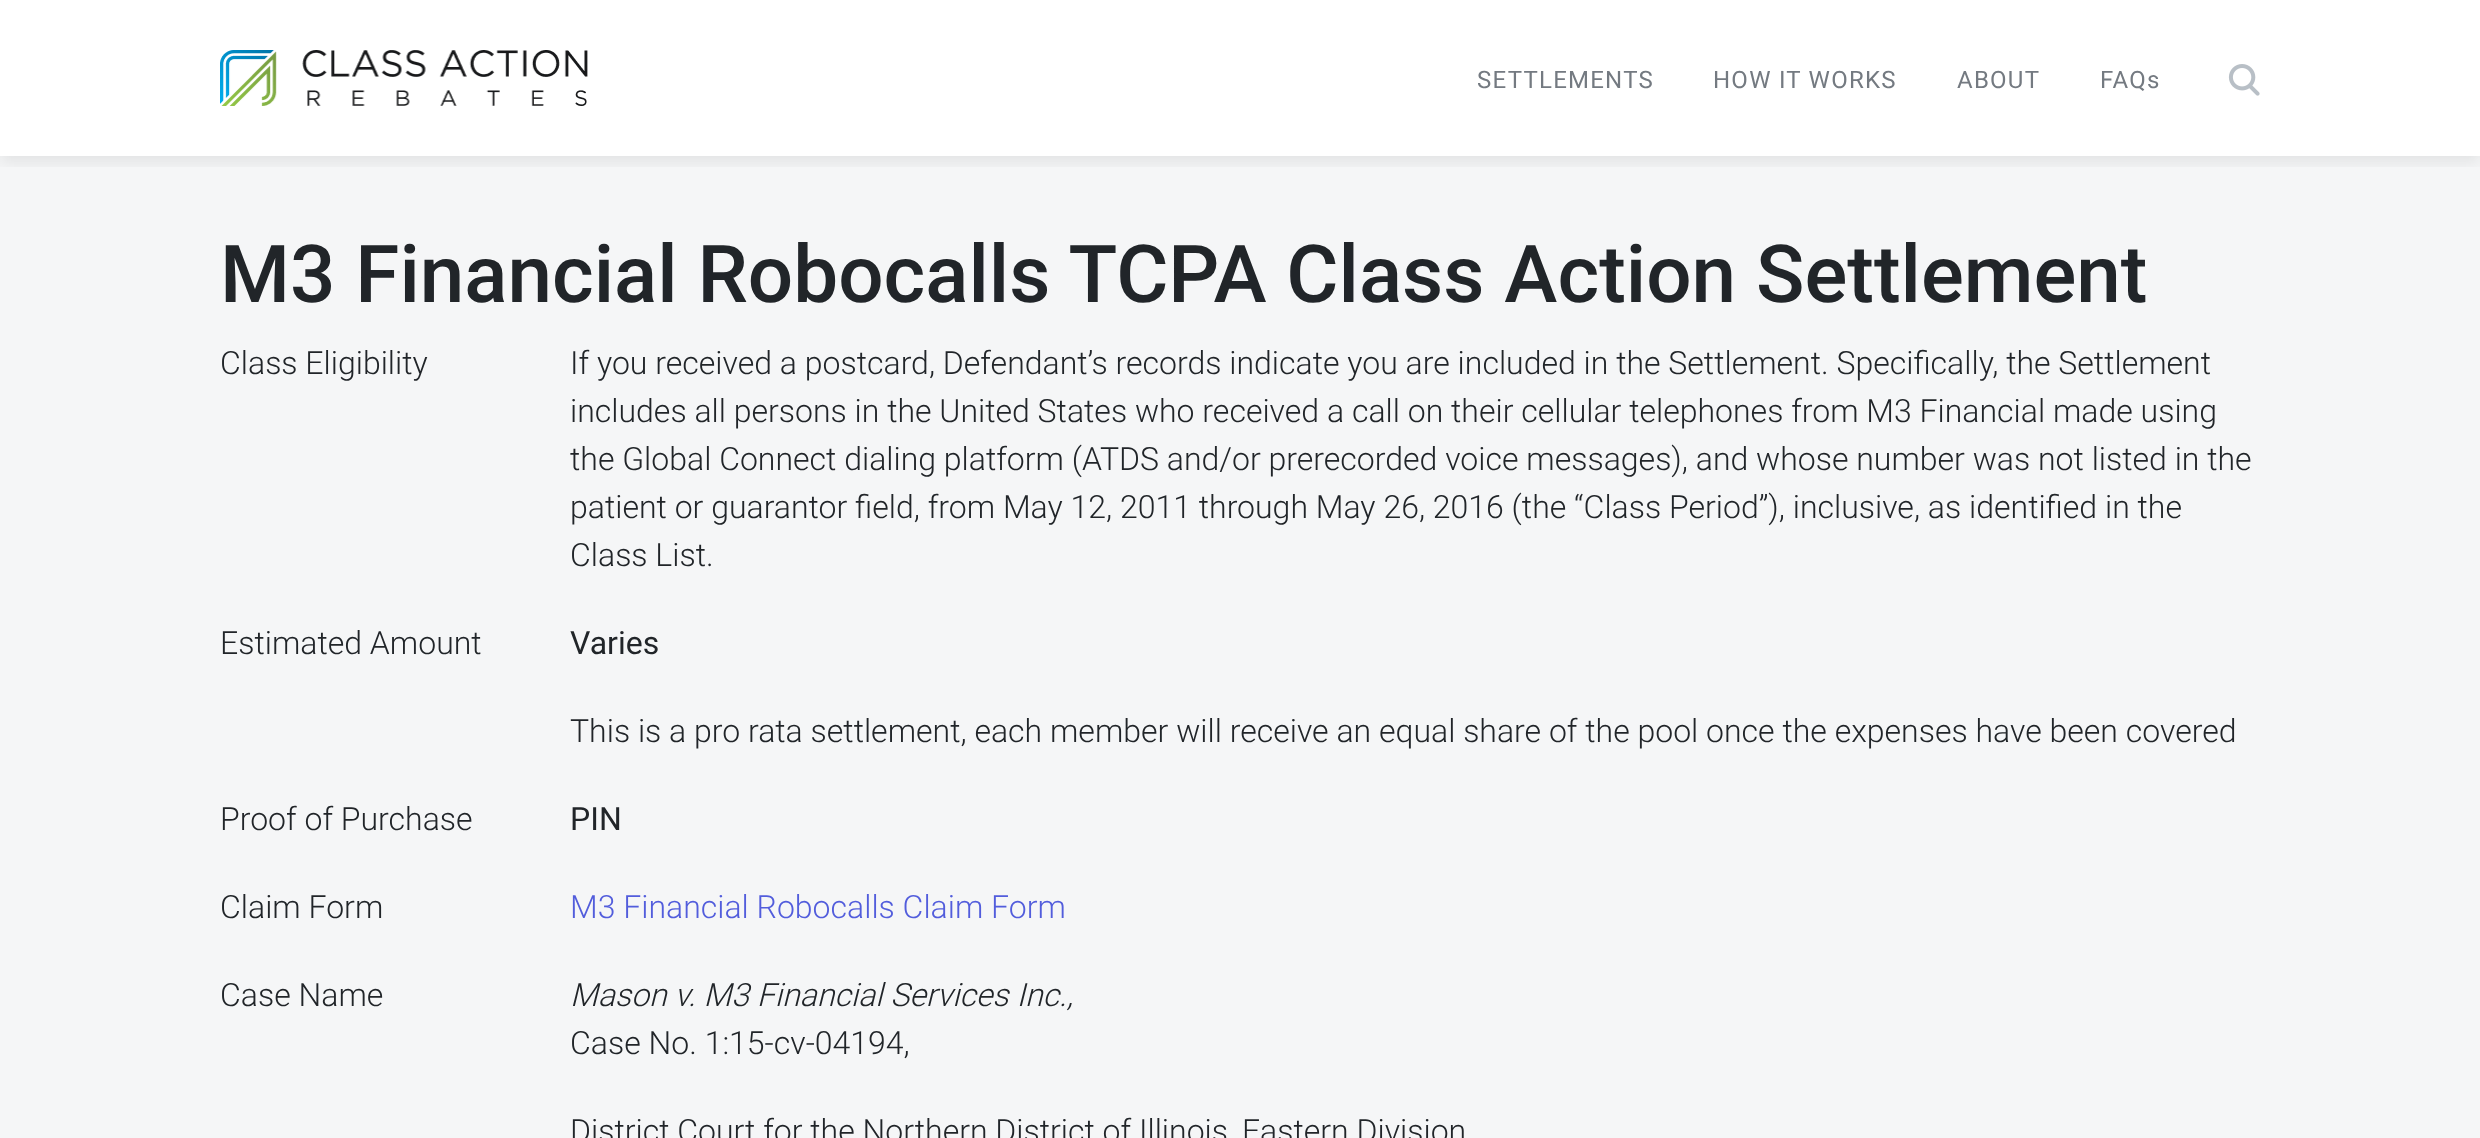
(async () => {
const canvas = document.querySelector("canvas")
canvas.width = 2480
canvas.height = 1138
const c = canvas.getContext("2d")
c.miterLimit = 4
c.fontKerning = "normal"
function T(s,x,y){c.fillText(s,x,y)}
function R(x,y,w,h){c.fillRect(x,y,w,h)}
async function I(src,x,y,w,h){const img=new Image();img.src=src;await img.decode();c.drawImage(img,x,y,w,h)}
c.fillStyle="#fff"
R(0,0,2480,1138)
c.fillStyle="#f5f6f7"
R(0,156,2480,982)
c.save()
c.beginPath()
c.rect(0,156,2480,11)
c.clip()
c.fillStyle="#00000014"
c.filter="blur(8px)"
c.beginPath()
c.rect(0,6,2480,156)
c.fill()
c.filter="none"
c.restore()
await I("1.png",220,50,368,56)
c.letterSpacing="1.25px"
c.font="24px Roboto"
c.fillStyle="#747a81"
T("SETTLEMENTS",1477,88)
T("HOW IT WORKS",1713,88)
T("ABOUT",1957,88)
T("FAQs",2100,88)
await I("2.png",2228,64,32,32)
c.letterSpacing="0px"
c.font="500 80px Roboto"
c.fillStyle="#212529"
T("M3 Financial Robocalls TCPA Class Action Settlement",220,302)
c.font="300 32px Roboto"
T("Class Eligibility",220,374)
T("If you received a postcard, Defendant’s records indicate you are included in the Settlement. Specifically, the Settlement",570,374)
T("includes all persons in the United States who received a call on their cellular telephones from M3 Financial made using",570,422)
T("the Global Connect dialing platform (ATDS and/or prerecorded voice messages), and whose number was not listed in the",570,470)
T("patient or guarantor field, from May 12, 2011 through May 26, 2016 (the “Class Period”), inclusive, as identified in the",570,518)
T("Class List.",570,566)
T("Estimated Amount",220,654)
c.font="32px Roboto"
T("Varies",570,654)
c.font="300 32px Roboto"
T("This is a pro rata settlement, each member will receive an equal share of the pool once the expenses have been covered",570,742)
T("Proof of Purchase",220,830)
c.font="32px Roboto"
T("PIN",570,830)
c.font="300 32px Roboto"
T("Claim Form",220,918)
c.fillStyle="#525ddc"
T("M3 Financial Robocalls Claim Form",570,918)
c.fillStyle="#212529"
T("Case Name",220,1006)
c.font="italic 300 32px Roboto"
T("Mason v. M3 Financial Services Inc.,",570,1006)
c.font="300 32px Roboto"
T("Case No. 1:15-cv-04194,",570,1054)
T("District Court for the Northern District of Illinois, Eastern Division",570,1142)
})()
